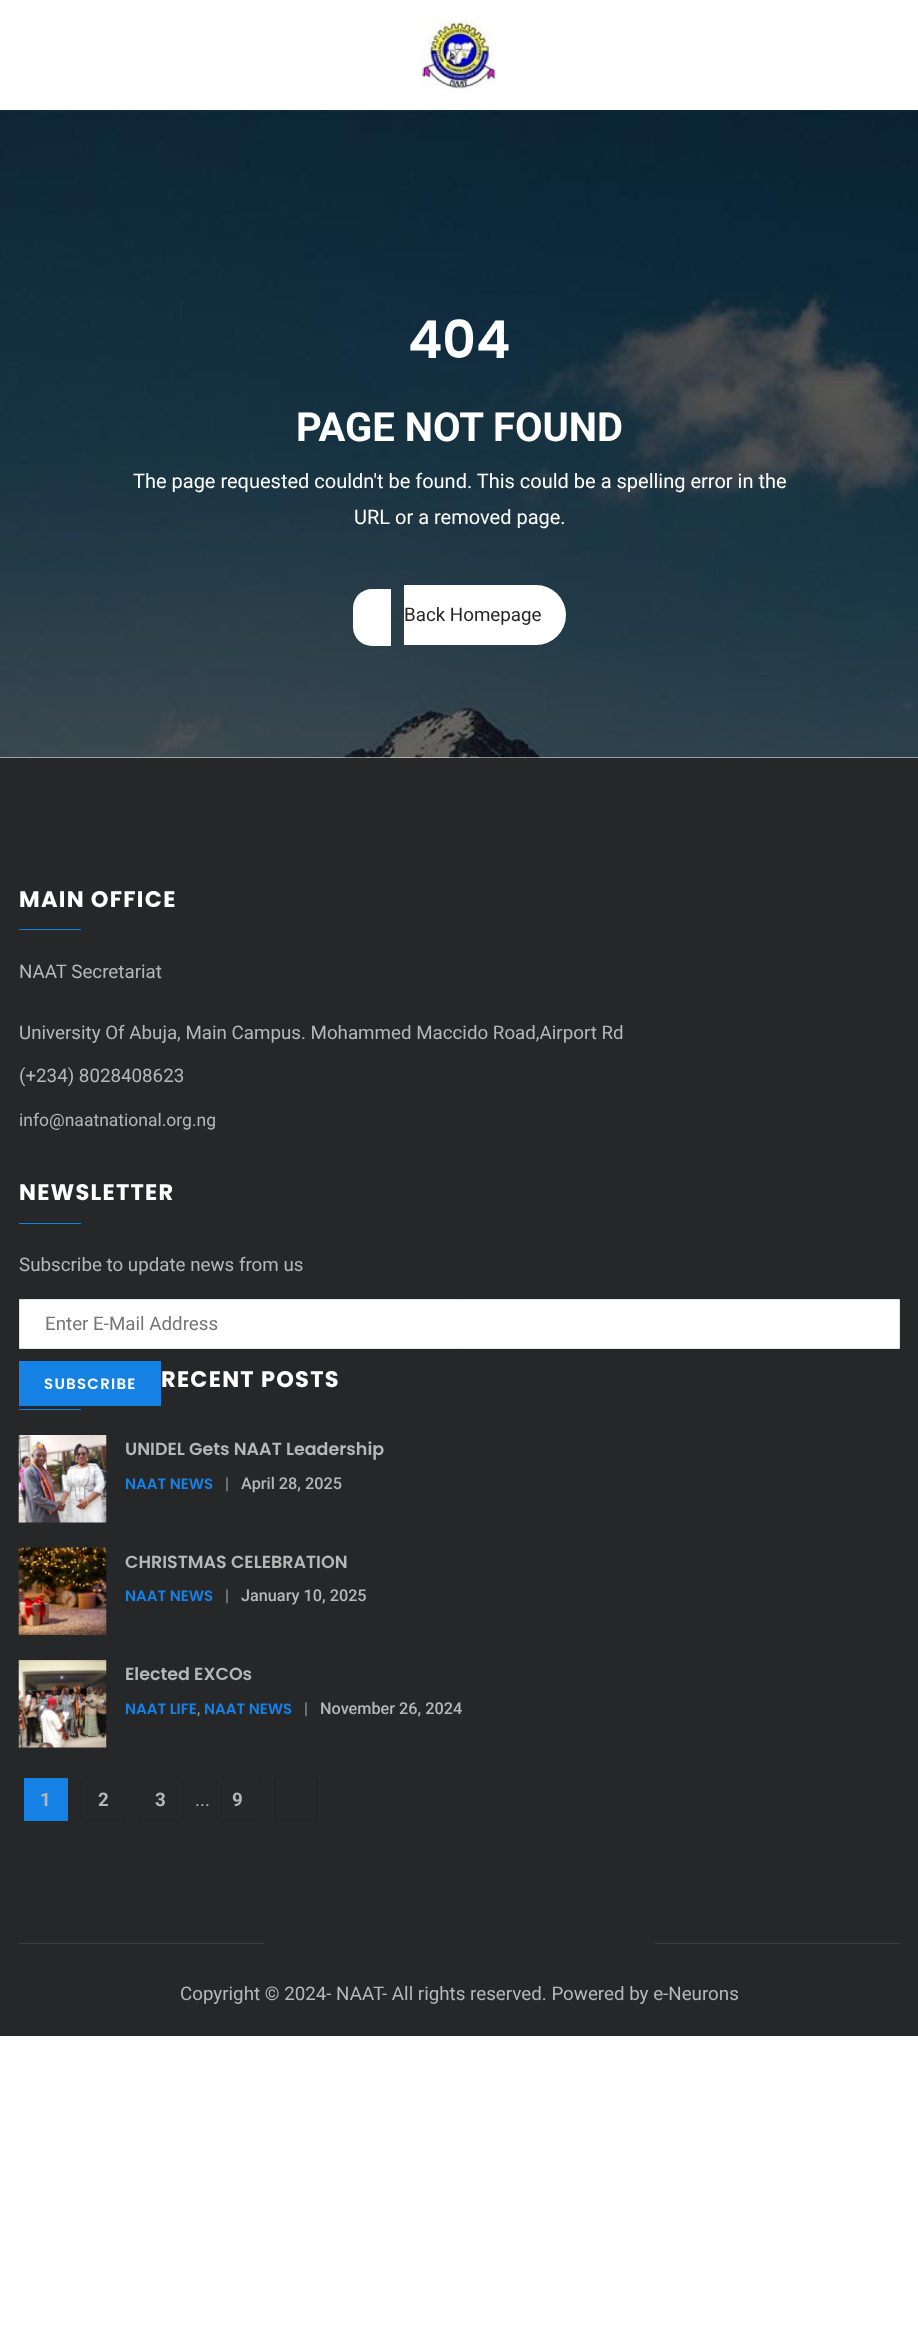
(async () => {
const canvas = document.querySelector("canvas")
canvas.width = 918
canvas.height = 2331
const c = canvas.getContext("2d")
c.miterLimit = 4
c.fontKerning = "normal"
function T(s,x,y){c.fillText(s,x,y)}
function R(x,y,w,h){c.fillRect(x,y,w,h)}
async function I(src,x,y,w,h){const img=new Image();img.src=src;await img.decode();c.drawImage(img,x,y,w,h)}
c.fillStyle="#fff"
R(0,0,918,2331)
await I("1.png",421,20,76,71)
await I("2.png",0,110,918,648)
c.font="600 52px Poppins"
T("404",408,358)
c.font="bold 40px Roboto"
T("PAGE NOT FOUND",296,441)
c.font="20px Roboto"
T("The page requested couldn't be found. This could be a spelling error in the",133,488)
T("URL or a removed page.",354,524)
c.beginPath()
c.roundRect(404,585,162,60,[0,30,30,0])
c.fill()
c.font="18.75px Roboto"
c.fillStyle="#262626"
T("Back Homepage",404,621)
c.fillStyle="#fff"
c.beginPath()
c.roundRect(353,589,38,57,[19,0,0,19])
c.fill()
c.fillStyle="#262729"
R(0,758,918,1278)
c.letterSpacing="1.25px"
c.font="bold 22.5px Poppins"
c.fillStyle="#fff"
T("MAIN OFFICE",19,907)
c.fillStyle="#1681e5"
R(19,929,62,1)
c.letterSpacing="0px"
c.font="18.75px Roboto"
c.fillStyle="#b7b7b7"
T("NAAT Secretariat",19,978)
T("University Of Abuja, Main Campus. Mohammed Maccido Road,Airport Rd",19,1039)
T("(+234) 8028408623",19,1082)
c.font="17.5px Roboto"
T("info@naatnational.org.ng",19,1126)
c.letterSpacing="1.25px"
c.font="bold 22.5px Poppins"
c.fillStyle="#fff"
T("NEWSLETTER",19,1200)
c.fillStyle="#1681e5"
R(19,1223,62,1)
c.letterSpacing="0px"
c.font="18.75px Roboto"
c.fillStyle="#b7b7b7"
T("Subscribe to update news from us",19,1271)
c.fillStyle="#fff"
c.beginPath()
c.rect(19.5,1299.5,880,49)
c.fill()
c.strokeStyle="#e6e6e6"
c.stroke()
c.fillStyle="#757575"
T("Enter E-Mail Address",45,1330)
c.fillStyle="#1681e5"
R(19,1361,142,45)
c.letterSpacing="1.25px"
c.font="600 15px Poppins"
c.fillStyle="#fff"
T("SUBSCRIBE",44,1389)
c.font="bold 22.5px Poppins"
T("RECENT POSTS",161,1387)
c.fillStyle="#1681e5"
R(19,1409,62,1)
await I("3.png",18,1435,89,88)
c.letterSpacing="0px"
c.font="600 17.5px Poppins"
c.fillStyle="#b7b7b7"
T("UNIDEL Gets NAAT Leadership",125,1455)
c.font="600 15px Poppins"
c.fillStyle="#1681e5"
T("NAAT NEWS",125,1489)
c.font="16.25px Roboto"
c.fillStyle="#999"
T("|",225,1489)
c.font="500 16.25px Roboto"
c.fillStyle="#b7b7b7"
T("April 28, 2025",241,1489)
await I("4.png",18,1547,89,88)
c.font="600 17.5px Poppins"
T("CHRISTMAS CELEBRATION",125,1568)
c.font="600 15px Poppins"
c.fillStyle="#1681e5"
T("NAAT NEWS",125,1601)
c.font="16.25px Roboto"
c.fillStyle="#999"
T("|",225,1601)
c.font="500 16.25px Roboto"
c.fillStyle="#b7b7b7"
T("January 10, 2025",241,1601)
await I("5.png",18,1660,89,88)
c.font="600 17.5px Poppins"
T("Elected EXCOs",125,1680)
c.font="600 15px Poppins"
c.fillStyle="#1681e5"
T("NAAT LIFE",125,1714)
c.font="16.25px Roboto"
c.fillStyle="#999"
T(",",197,1714)
c.font="600 15px Poppins"
c.fillStyle="#1681e5"
T("NAAT NEWS",204,1714)
c.font="16.25px Roboto"
c.fillStyle="#999"
T("|",304,1714)
c.font="500 16.25px Roboto"
c.fillStyle="#b7b7b7"
T("November 26, 2024",320,1714)
c.fillStyle="#1681e5"
R(24,1778,44,43)
c.font="bold 18.75px Roboto"
c.fillStyle="#b7b7b7"
T("1",40,1806)
c.strokeStyle="#222325"
c.strokeRect(81.5,1778.5,43,42)
T("2",98,1806)
c.strokeRect(139.5,1778.5,43,42)
T("3",155,1806)
c.font="18.75px Roboto"
T("...",195,1806)
c.strokeRect(216.5,1778.5,43,42)
c.font="bold 18.75px Roboto"
T("9",232,1806)
c.strokeRect(274.5,1778.5,43,42)
c.fillStyle="#3c3d3e"
R(19,1943,245,1)
R(655,1943,245,1)
c.font="18.75px Roboto"
c.fillStyle="#b7b7b7"
T("Copyright © 2024- NAAT- All rights reserved. Powered by e-Neurons",180,2000)
})()
